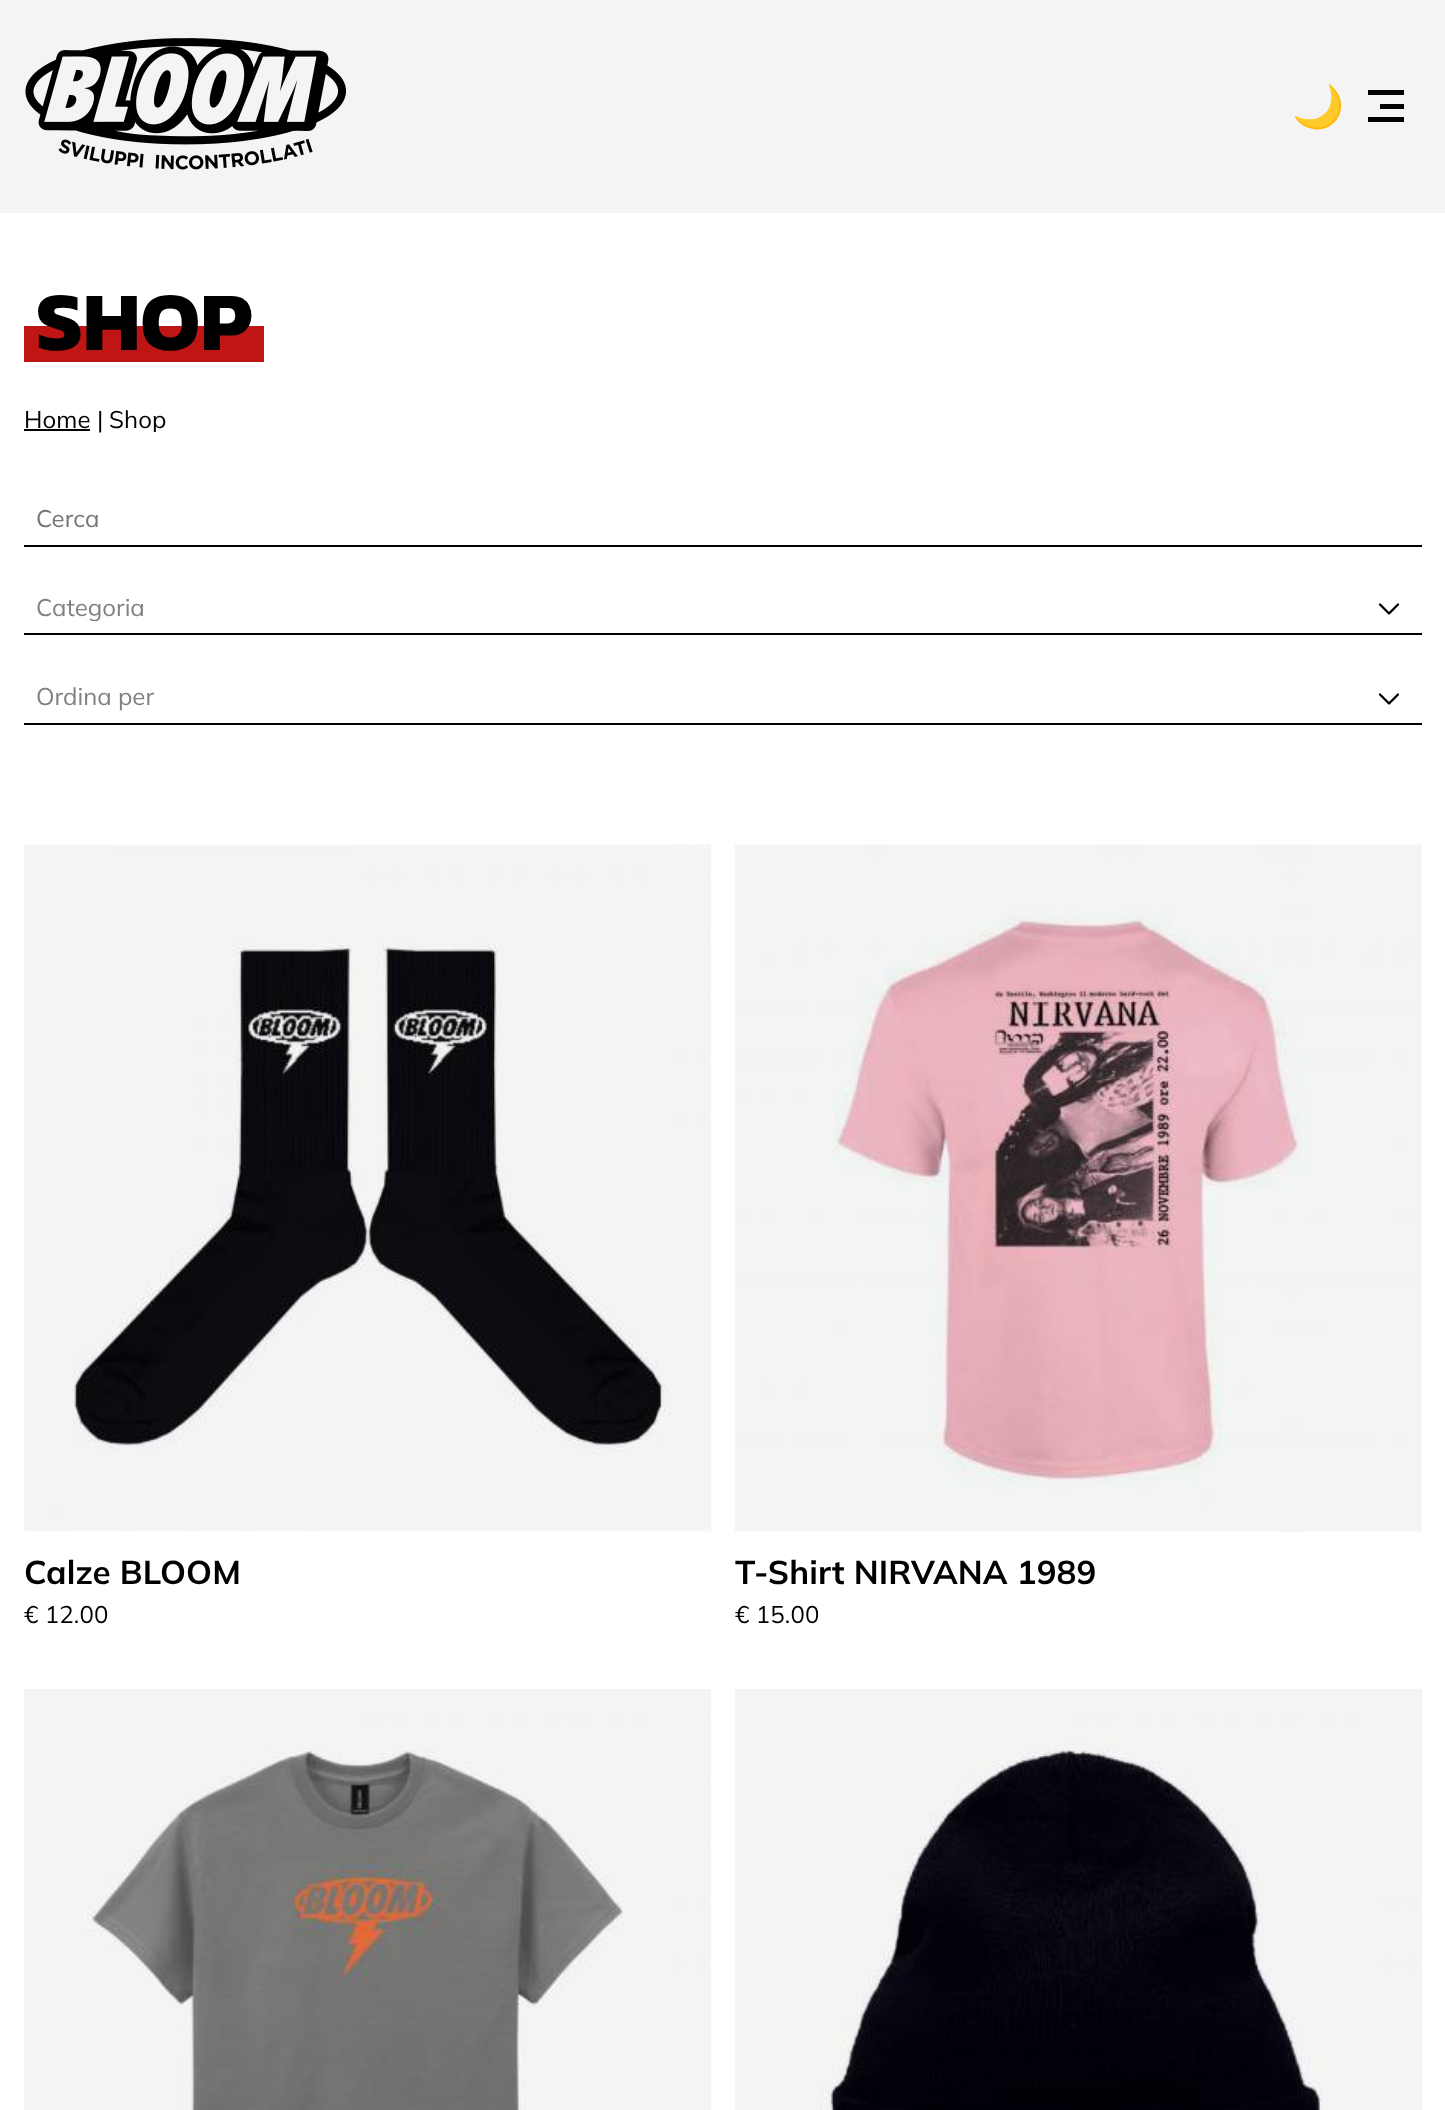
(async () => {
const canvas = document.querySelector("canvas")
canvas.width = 1445
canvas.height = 2110
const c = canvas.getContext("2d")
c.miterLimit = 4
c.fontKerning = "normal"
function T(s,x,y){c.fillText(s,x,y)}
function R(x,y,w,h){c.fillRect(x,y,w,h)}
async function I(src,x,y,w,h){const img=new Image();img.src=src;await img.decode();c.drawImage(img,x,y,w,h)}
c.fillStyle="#fff"
R(0,0,1445,2110)
c.fillStyle="#f4f4f4"
R(0,0,1445,213)
await I("1.png",25,38,321,132)
c.font="42px Noto Color Emoji"
c.fillStyle="#000"
T("🌙",1292,121)
R(1380,104,24,5)
R(1368,90,36,5)
R(1368,117,36,5)
c.fillStyle="#bf1514"
R(24,326,240,36)
c.letterSpacing="0.1px"
c.font="bold 84px Kanit"
c.fillStyle="#000"
T("SHOP",36,350)
c.font="24px Mulish"
T("Home",24,428)
R(24,429,66,2)
T("|",97,428)
c.save()
c.beginPath()
c.rect(110,405,57,27)
c.clip()
T("Shop",109,428)
c.restore()
R(24,545,1398,2)
c.letterSpacing="0px"
c.fillStyle="#757575"
T("Cerca",36,527)
c.fillStyle="#000"
R(24,633,1398,2)
c.save()
c.beginPath()
c.rect(36,594,1374,27)
c.clip()
c.fillStyle="#808080"
T("Categoria",36,616)
c.restore()
await I("2.png",1378,603,22,12)
R(24,723,1398,2)
c.fillStyle="#808080"
T("Ordina per",36,705)
await I("2.png",1378,693,22,12)
await I("3.png",24,844,687,688)
c.letterSpacing="0.1px"
c.font="bold 33px Mulish"
c.fillStyle="#000"
T("Calze BLOOM",24,1584)
c.font="24px Mulish"
T("€ 12.00",24,1623)
await I("4.png",735,844,687,688)
c.font="bold 33px Mulish"
T("T-Shirt NIRVANA 1989",735,1584)
c.font="24px Mulish"
T("€ 15.00",735,1623)
await I("5.png",24,1689,687,421)
await I("6.png",735,1689,687,421)
})()
